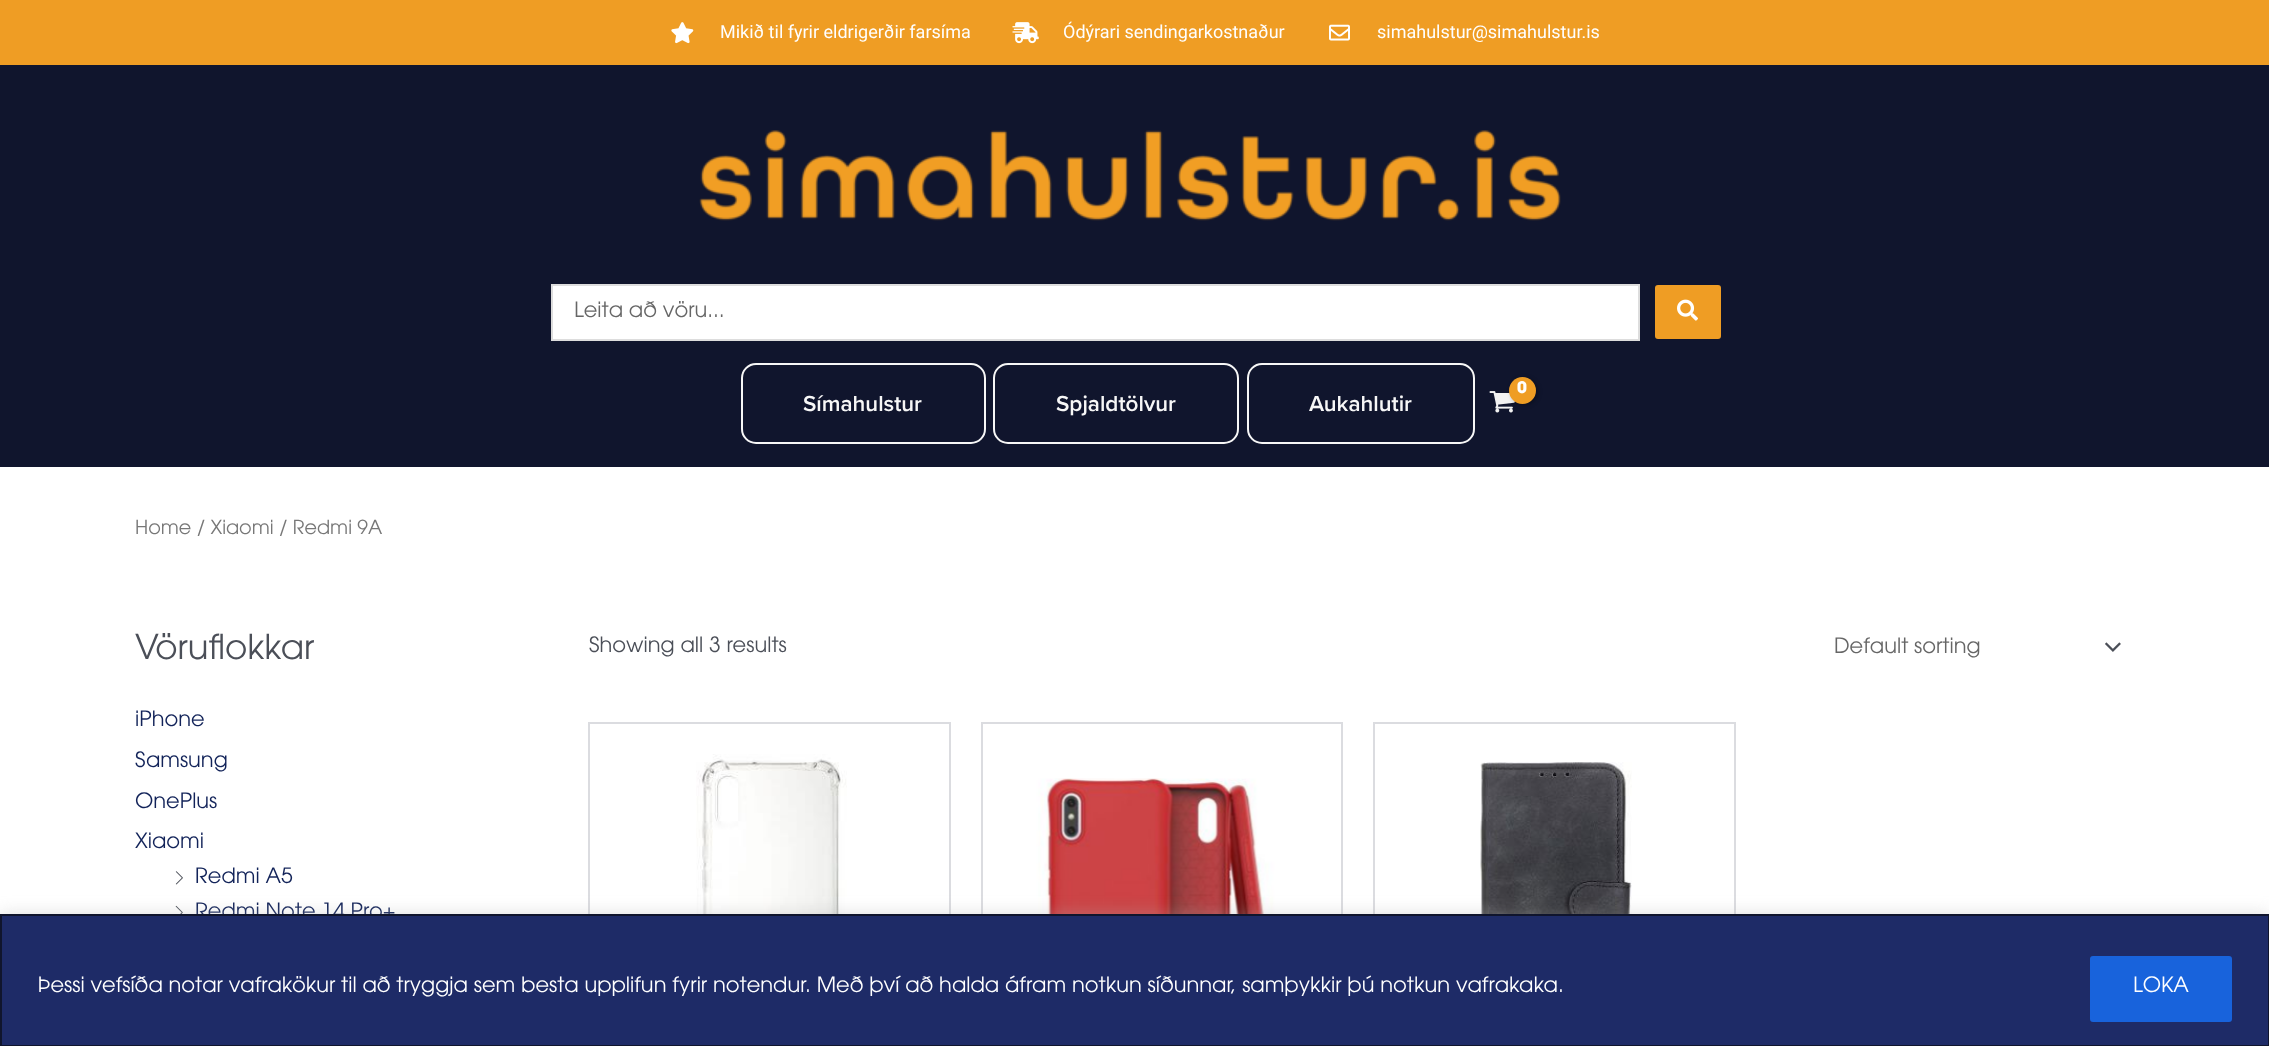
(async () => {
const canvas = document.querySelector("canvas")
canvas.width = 2269
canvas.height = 1046
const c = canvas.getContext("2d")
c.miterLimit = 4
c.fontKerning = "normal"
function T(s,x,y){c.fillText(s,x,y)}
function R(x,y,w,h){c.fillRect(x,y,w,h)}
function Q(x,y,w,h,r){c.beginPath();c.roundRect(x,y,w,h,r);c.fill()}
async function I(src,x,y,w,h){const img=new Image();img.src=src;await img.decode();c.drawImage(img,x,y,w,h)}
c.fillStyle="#fff"
R(0,0,2269,1046)
c.fillStyle="#ef9d24"
R(0,0,2269,65)
await I("1.png",671,22,23,22)
c.font="18px Roboto"
c.fillStyle="#fff"
T("Mikið til fyrir eldrigerðir farsíma",720,38)
await I("2.png",1012,22,27,22)
T("Ódýrari sendingarkostnaður",1063,38)
await I("3.png",1329,24,21,17)
T("simahulstur@simahulstur.is",1377,38)
c.fillStyle="#10152d"
R(0,65,2269,402)
await I("4.png",699,130,862,91)
c.fillStyle="#fff"
c.beginPath()
c.rect(552,285,1087,55)
c.fill()
c.strokeStyle="#ddd"
c.lineWidth=2
c.stroke()
c.font="300 21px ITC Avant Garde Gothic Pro"
c.fillStyle="#666"
T("Leita að vöru...",574,317)
c.fillStyle="#ef9d24"
Q(1655,285,66,54,3)
await I("5.png",1677,299,21,22)
await I("6.png",1489,391,26,22)
c.fillStyle="#0000004d"
c.filter="blur(2px)"
c.beginPath()
c.roundRect(1511,378,27,27,13.5)
c.fill()
c.filter="none"
c.fillStyle="#ef9d24"
c.beginPath()
c.arc(1522.5,390.5,13.5,0,7)
c.fill()
c.letterSpacing="-1px"
c.font="bold 16px ITC Avant Garde Gothic Pro"
c.fillStyle="#fff"
T("0",1517,393)
c.beginPath()
c.roundRect(742,364,243,79,14)
c.strokeStyle="#f7f7f7"
c.stroke()
c.letterSpacing="0px"
c.font="600 22.5px Proxima Nova"
c.fillStyle="#f7f7f7"
T("Símahulstur",803,411)
c.beginPath()
c.roundRect(994,364,244,79,14)
c.stroke()
T("Spjaldtölvur",1056,411)
c.beginPath()
c.roundRect(1248,364,226,79,14)
c.stroke()
T("Aukahlutir",1309,411)
c.font="300 19.25px ITC Avant Garde Gothic Pro"
c.fillStyle="#777"
T("Home / Xiaomi / Redmi 9A",135,534)
c.font="300 34px ITC Avant Garde Gothic Pro"
c.fillStyle="#4b4f58"
T("Vöruflokkar",135,659)
c.font="300 21px ITC Avant Garde Gothic Pro"
c.fillStyle="#122359"
T("iPhone",135,726)
T("Samsung",135,767)
T("OnePlus",135,808)
T("Xiaomi",135,848)
await I("7.png",175,871,8,14)
T("Redmi A5",195,883)
await I("8.png",175,905,8,9)
T("Redmi Note 14 Pro+",195,918)
c.fillStyle="#4b4f58"
T("Showing all 3 results",589,652)
await I("9.png",2105,642,16,10)
c.fillStyle="#666"
T("Default sorting",1834,653)
c.strokeStyle="#dbdce0"
c.strokeRect(589,723,361,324)
await I("10.png",696,754,151,160)
c.strokeRect(982,723,360,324)
await I("11.png",1005,778,314,136)
c.strokeRect(1374,723,361,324)
await I("12.png",1480,762,152,152)
c.fillStyle="#acabab4d"
c.filter="blur(7.5px)"
c.beginPath()
c.rect(0,912,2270,134)
c.fill()
c.filter="none"
c.fillStyle="#1e2b67"
c.beginPath()
c.rect(1,915,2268,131)
c.fill()
c.strokeStyle="#10152d"
c.stroke()
c.fillStyle="#fff"
T("Þessi vefsíða notar vafrakökur til að tryggja sem besta upplifun fyrir notendur. Með því að halda áfram notkun síðunnar, samþykkir þú notkun vafrakaka.",38,992)
c.fillStyle="#1863dc"
c.beginPath()
c.roundRect(2091.5,957.5,139,63,1.5)
c.fill()
c.strokeStyle="#1863dc"
c.lineWidth=3
c.stroke()
c.fillStyle="#fff"
T("LOKA",2133,992)
})()
